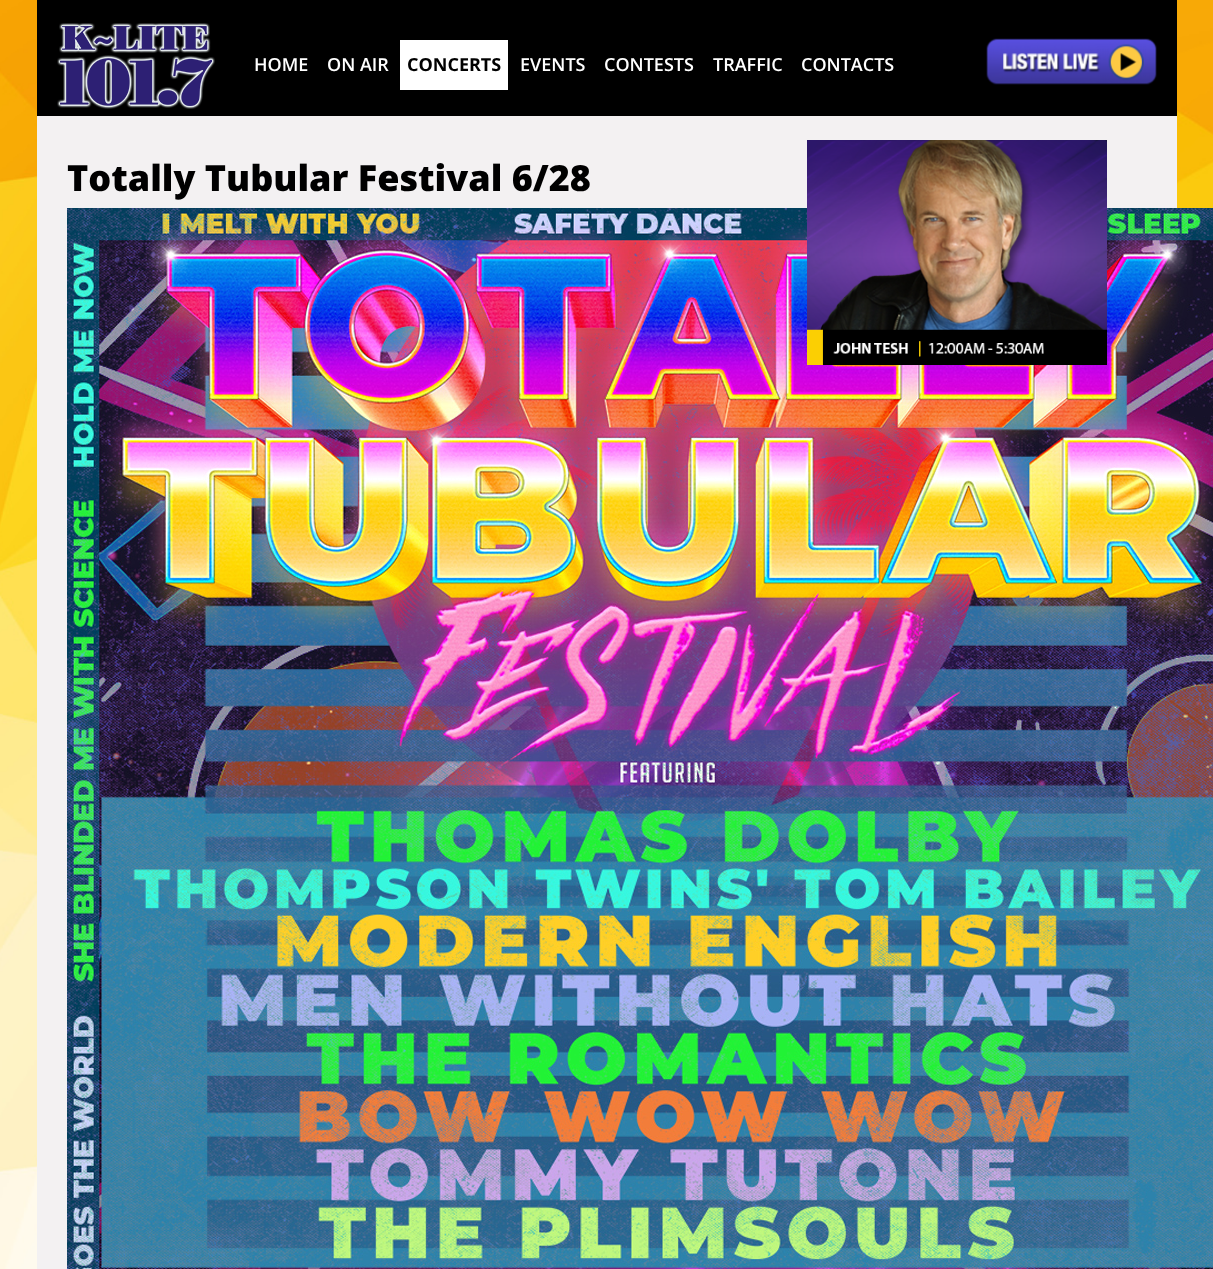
(async () => {
const canvas = document.querySelector("canvas")
canvas.width = 1213
canvas.height = 1269
const c = canvas.getContext("2d")
c.miterLimit = 4
c.fontKerning = "normal"
function T(s,x,y){c.fillText(s,x,y)}
function R(x,y,w,h){c.fillRect(x,y,w,h)}
async function I(src,x,y,w,h){const img=new Image();img.src=src;await img.decode();c.drawImage(img,x,y,w,h)}
c.fillStyle="#fff"
R(0,0,1213,1269)
await I("1.png",0,0,1213,1269)
c.fillStyle="#000"
R(37,0,1140,116)
await I("2.png",57,23,158,86)
c.font="600 18px Open Sans"
c.fillStyle="#fff"
T("HOME",254,71)
T("ON AIR",327,71)
R(400,40,108,50)
c.font="bold 18px Open Sans"
c.fillStyle="#000"
T("CONCERTS",407,71)
c.font="600 18px Open Sans"
c.fillStyle="#fff"
T("EVENTS",520,71)
T("CONTESTS",604,71)
T("TRAFFIC",713,71)
T("CONTACTS",801,71)
await I("3.png",986,38,171,47)
c.fillStyle="#f3f1f2"
R(37,116,1140,1153)
c.font="800 36px Open Sans"
c.fillStyle="#000"
T("Totally Tubular Festival 6/28",67,191)
await I("4.png",67,208,1146,1061)
await I("5.png",807,140,300,225)
})()
